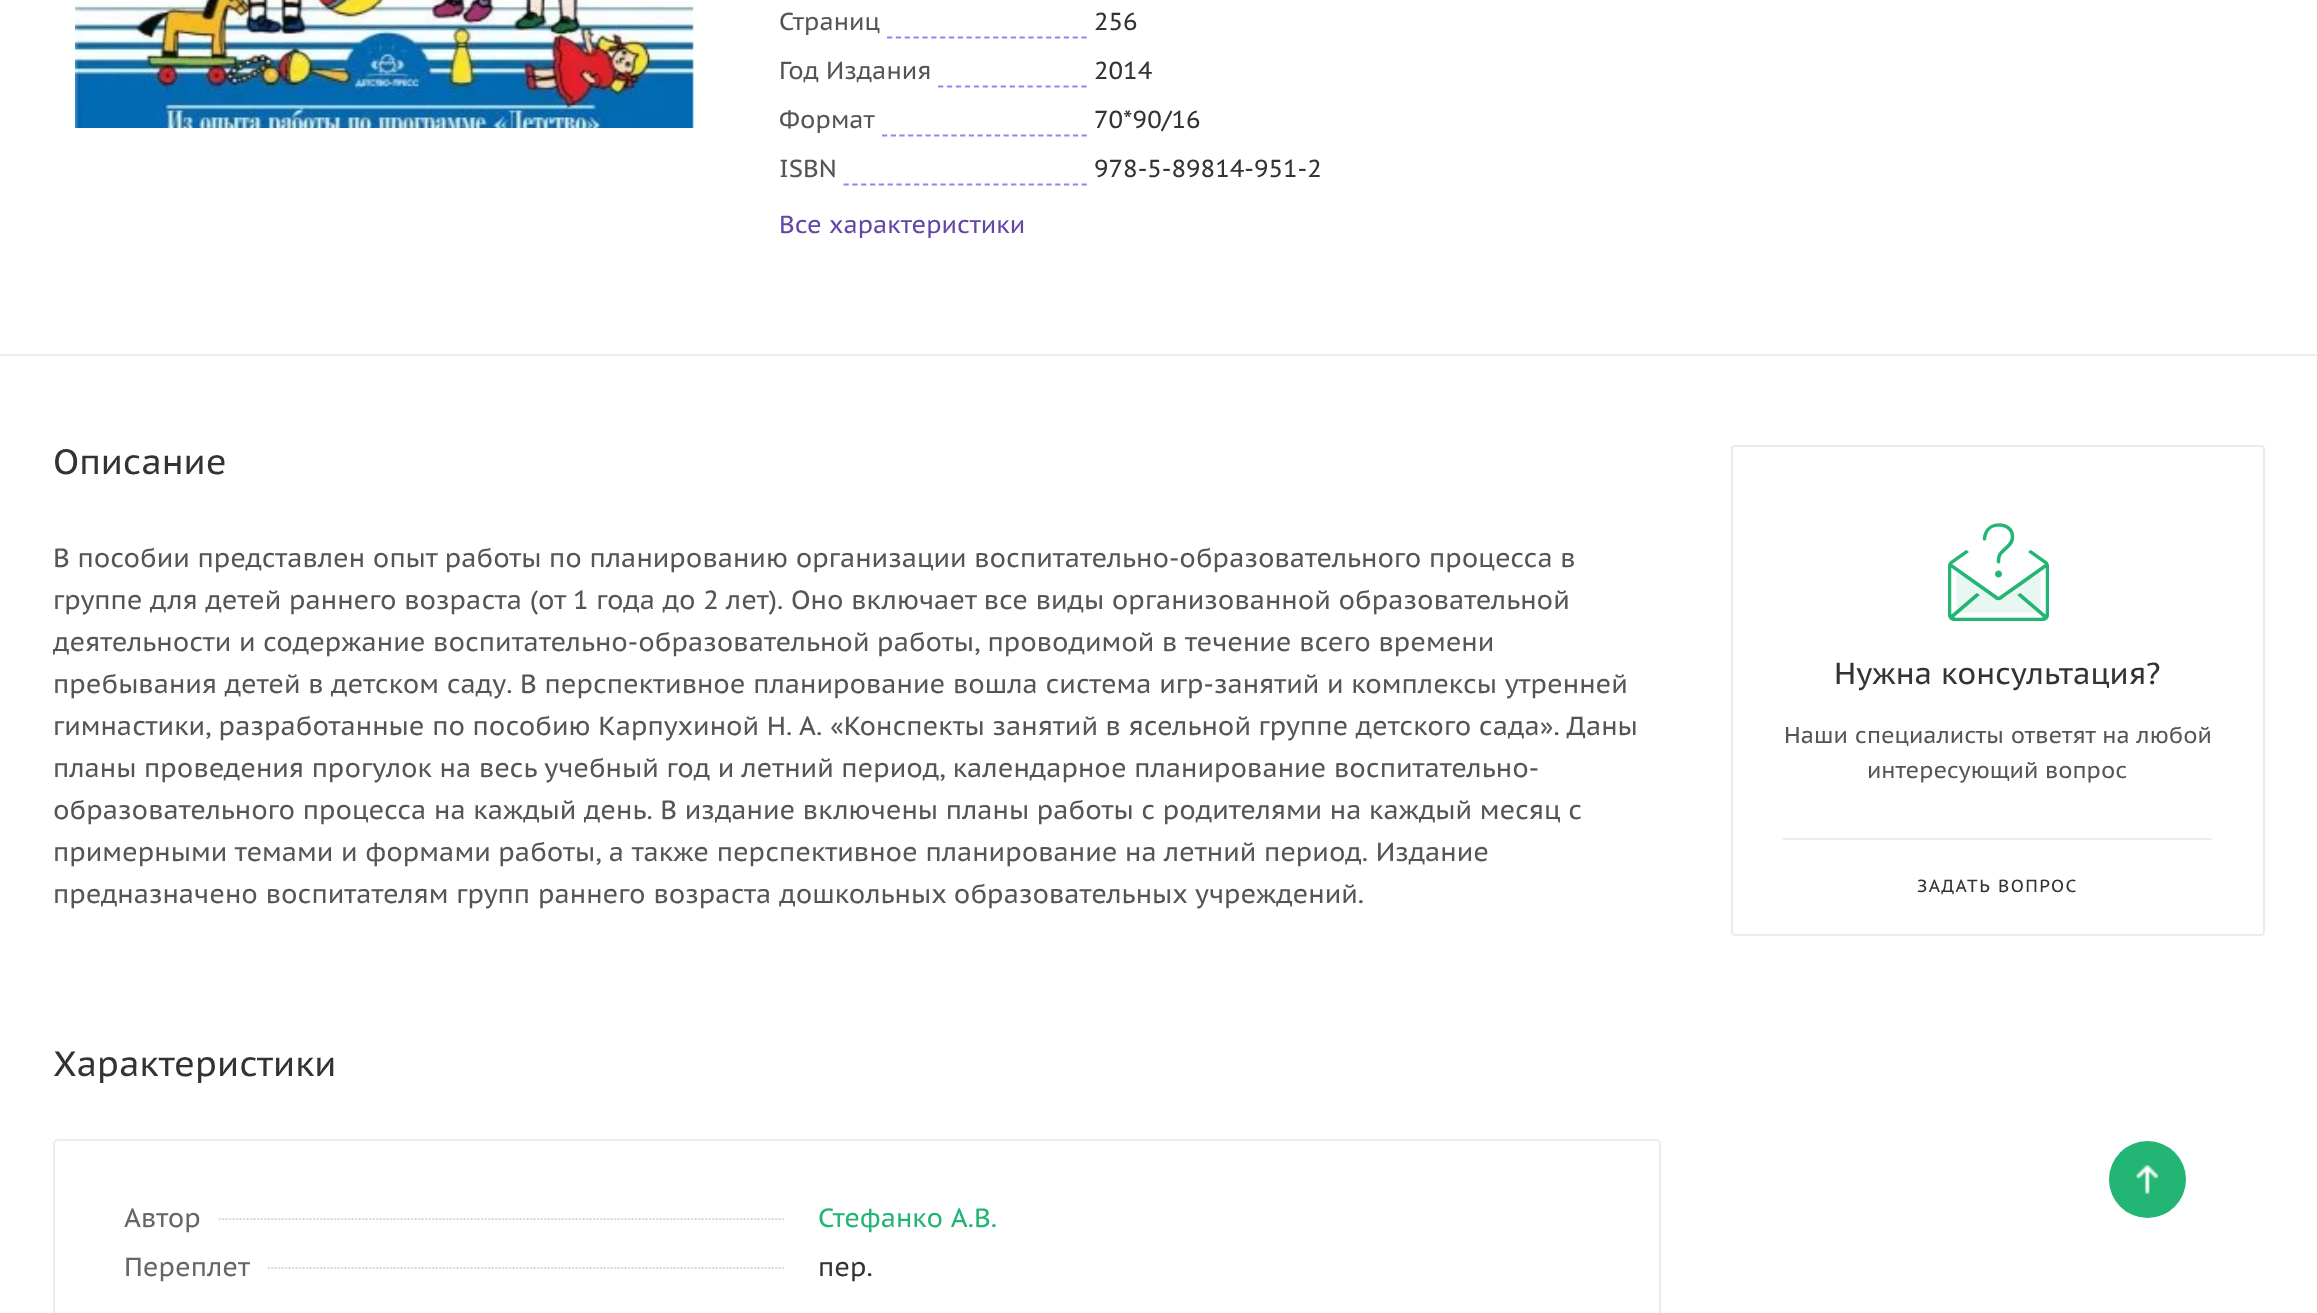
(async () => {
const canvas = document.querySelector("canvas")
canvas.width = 2317
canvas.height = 1313
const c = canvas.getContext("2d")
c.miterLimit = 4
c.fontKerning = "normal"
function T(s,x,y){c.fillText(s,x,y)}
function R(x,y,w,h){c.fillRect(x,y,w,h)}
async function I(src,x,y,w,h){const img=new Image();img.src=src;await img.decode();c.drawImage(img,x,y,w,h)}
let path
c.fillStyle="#fff"
R(0,0,2317,1313)
c.fillStyle="#ececec"
R(0,354,2317,2)
await I("1.png",75,0,619,128)
c.font="24.5px PT Sans Caption"
c.fillStyle="#555"
T("Страниц",779,30)
c.fillStyle="#333"
T("256",1094,30)
path = new Path2D("M887 37.5h200")
c.strokeStyle="#9f7ef3"
c.lineWidth=1.8
c.setLineDash([5.25,3.59])
c.stroke(path)
c.fillStyle="#555"
T("Год Издания",779,79)
c.fillStyle="#333"
T("2014",1094,79)
path = new Path2D("M938 86.5h149")
c.setLineDash([5.25,3.71])
c.stroke(path)
c.fillStyle="#555"
T("Формат",779,128)
c.fillStyle="#333"
T("70*90/16",1094,128)
path = new Path2D("M882 135.5h205")
c.setLineDash([5.25,3.43])
c.stroke(path)
c.fillStyle="#555"
T("ISBN",779,177)
c.fillStyle="#333"
T("978-5-89814-951-2",1094,177)
path = new Path2D("M843.5 184.5h243.5")
c.setLineDash([5.25,3.57])
c.stroke(path)
c.fillStyle="#6247a7"
T("Все характеристики",779,233)
c.font="35px PT Sans Caption"
c.fillStyle="#333"
T("Описание",53,474)
c.font="26.25px PT Sans Caption"
c.fillStyle="#555"
T("В пособии представлен опыт работы по планированию организации воспитательно-образовательного процесса в",53,567)
T("группе для детей раннего возраста (от 1 года до 2 лет). Оно включает все виды организованной образовательной",53,609)
T("деятельности и содержание воспитательно-образовательной работы, проводимой в течение всего времени",53,651)
T("пребывания детей в детском саду. В перспективное планирование вошла система игр-занятий и комплексы утренней",53,693)
T("гимнастики, разработанные по пособию Карпухиной Н. А. «Конспекты занятий в ясельной группе детского сада». Даны",53,735)
T("планы проведения прогулок на весь учебный год и летний период, календарное планирование воспитательно-",53,777)
T("образовательного процесса на каждый день. В издание включены планы работы с родителями на каждый месяц с",53,819)
T("примерными темами и формами работы, а также перспективное планирование на летний период. Издание",53,861)
c.wordSpacing="0.25px"
T("предназначено воспитателям групп раннего возраста дошкольных образовательных учреждений.",53,903)
c.wordSpacing="0px"
c.font="35px PT Sans Caption"
c.fillStyle="#333"
T("Характеристики",53,1076)
c.beginPath()
c.roundRect(54,1140,1606,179,4)
c.strokeStyle="#ececec"
c.lineWidth=2
c.setLineDash([])
c.stroke()
await I("2.png",219,1218,565,2)
c.font="26.25px PT Sans Caption"
c.fillStyle="#666"
T("Автор",124,1227)
c.wordSpacing="1px"
c.fillStyle="#22b573"
T("Стефанко А.В.",818,1227)
await I("3.png",268,1267,516,2)
c.wordSpacing="0px"
c.fillStyle="#666"
T("Переплет",124,1276)
c.fillStyle="#333"
T("пер.",818,1276)
c.beginPath()
c.roundRect(1732,446,532,489,3)
c.stroke()
await I("4.png",1948,523,101,98)
c.font="30.25px PT Sans Caption"
T("Нужна консультация?",1834,684)
c.wordSpacing="0.5px"
c.font="22.75px PT Sans Caption"
c.fillStyle="#555"
T("Наши специалисты ответят на любой",1784,743)
c.wordSpacing="0px"
T("интересующий вопрос",1867,778)
c.fillStyle="#ececec"
R(1783,838,429,2)
c.letterSpacing="1.4px"
c.wordSpacing="1px"
c.font="17.5px PT Sans Caption"
c.fillStyle="#333"
T("ЗАДАТЬ ВОПРОС",1917,892)
c.fillStyle="#22b573"
c.beginPath()
c.arc(2147.5,1179.5,38.5,0,7)
c.fill()
await I("5.png",2136,1165,22,29)
})()
